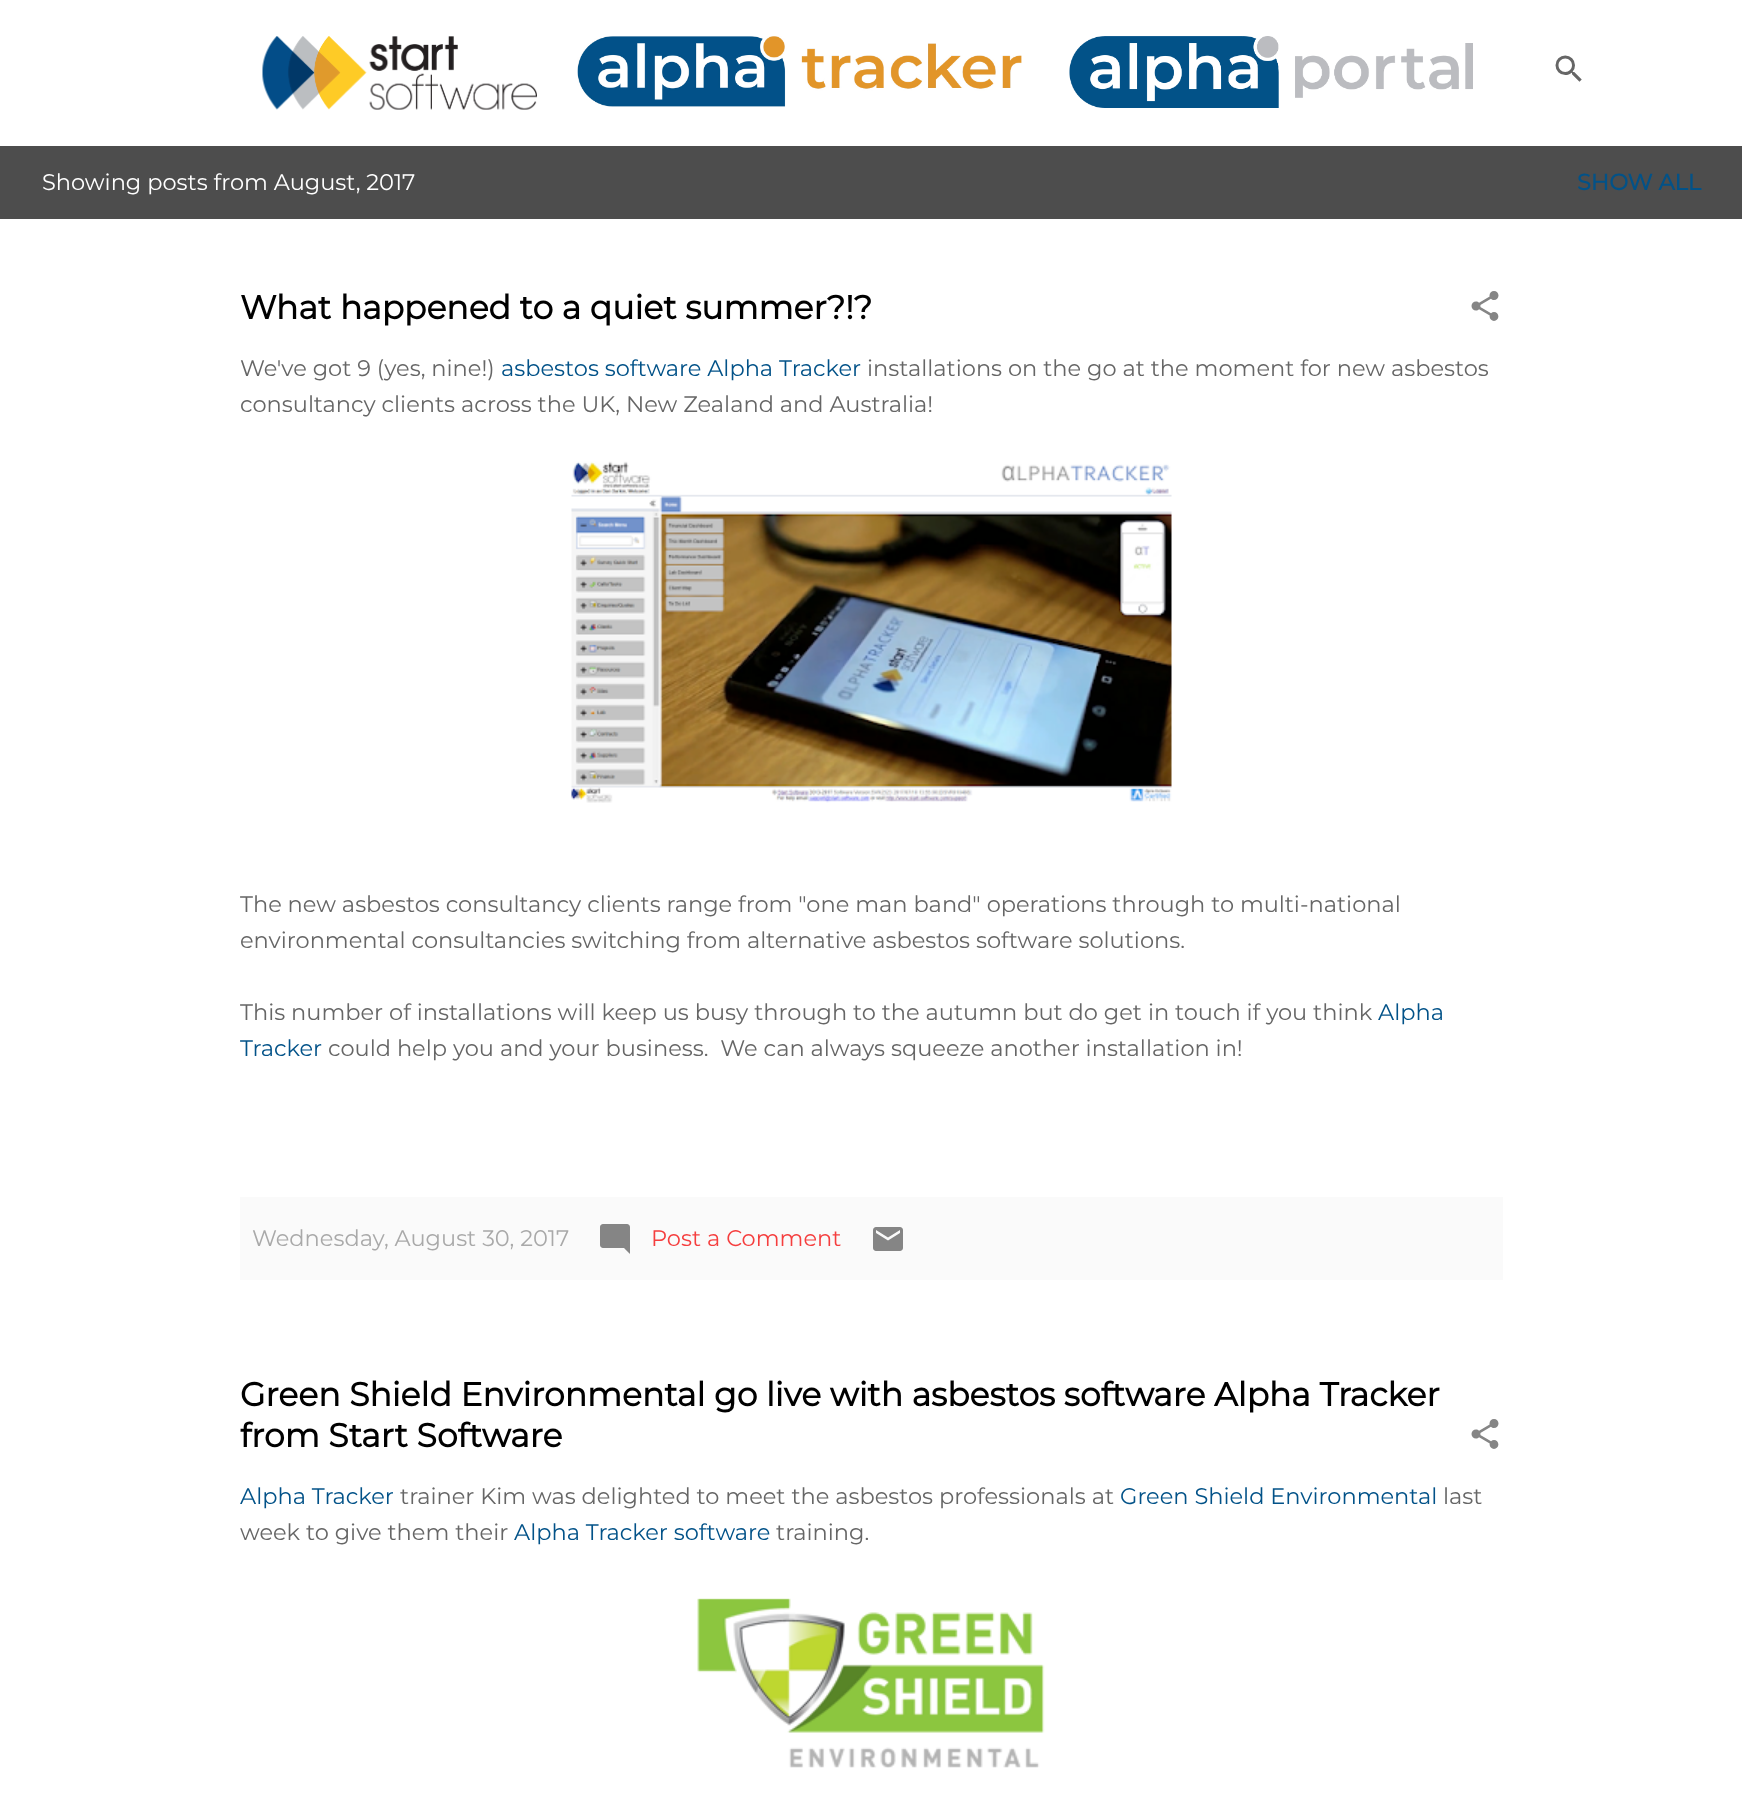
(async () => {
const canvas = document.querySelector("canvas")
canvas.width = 1742
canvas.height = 1819
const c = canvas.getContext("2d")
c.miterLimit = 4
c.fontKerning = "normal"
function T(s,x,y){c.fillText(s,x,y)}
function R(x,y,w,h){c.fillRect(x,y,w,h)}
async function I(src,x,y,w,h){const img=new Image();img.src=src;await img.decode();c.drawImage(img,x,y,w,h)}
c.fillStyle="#fff"
R(0,0,1742,1819)
await I("1.png",262,36,275,74)
await I("2.png",577,36,445,71)
await I("3.png",1069,36,404,72)
await I("4.png",1555,55,27,27)
c.fillStyle="#4d4d4d"
R(0,146,1742,73)
c.font="100 22.5px Montserrat"
c.fillStyle="#fff"
T("Showing posts from August, 2017",42,190)
c.font="bold 22.5px Montserrat"
c.fillStyle="#025288"
T("SHOW ALL",1577,190)
c.font="bold 33px Montserrat"
c.fillStyle="#000"
T("What happened to a quiet summer?!?",240,319)
await I("5.png",1471,291,28,30)
c.font="100 22.5px Montserrat"
c.fillStyle="#666"
T("We've got 9 (yes, nine!)",240,376)
c.fillStyle="#025288"
T("asbestos software Alpha Tracker",501,376)
c.fillStyle="#666"
T("installations on the go at the moment for new asbestos",867,376)
T("consultancy clients across the UK, New Zealand and Australia!",240,412)
await I("6.png",571,461,601,342)
T("The new asbestos consultancy clients range from \"one man band\" operations through to multi-national",240,912)
T("environmental consultancies switching from alternative asbestos software solutions.",240,948)
T("This number of installations will keep us busy through to the autumn but do get in touch if you think",240,1020)
c.fillStyle="#025288"
T("Alpha",1378,1020)
T("Tracker",240,1056)
c.fillStyle="#666"
T("could help you and your business.  We can always squeeze another installation in!",328,1056)
c.fillStyle="#fafafa"
R(240,1197,1263,83)
c.fillStyle="#a9a9a9"
T("Wednesday, August 30, 2017",252,1246)
await I("7.png",600,1224,30,30)
c.fillStyle="#f53e3e"
T("Post a Comment",651,1246)
await I("8.png",873,1227,30,24)
c.font="bold 33px Montserrat"
c.fillStyle="#000"
T("Green Shield Environmental go live with asbestos software Alpha Tracker",240,1406)
T("from Start Software",240,1447)
await I("5.png",1471,1419,28,30)
c.font="100 22.5px Montserrat"
c.fillStyle="#025288"
T("Alpha Tracker",240,1504)
c.fillStyle="#666"
T("trainer Kim was delighted to meet the asbestos professionals at",400,1504)
c.fillStyle="#025288"
T("Green Shield Environmental",1120,1504)
c.fillStyle="#666"
T("last",1443,1504)
T("week to give them their",240,1540)
c.fillStyle="#025288"
T("Alpha Tracker software",514,1540)
c.fillStyle="#666"
T("training.",776,1540)
await I("9.png",697,1598,348,170)
})()
